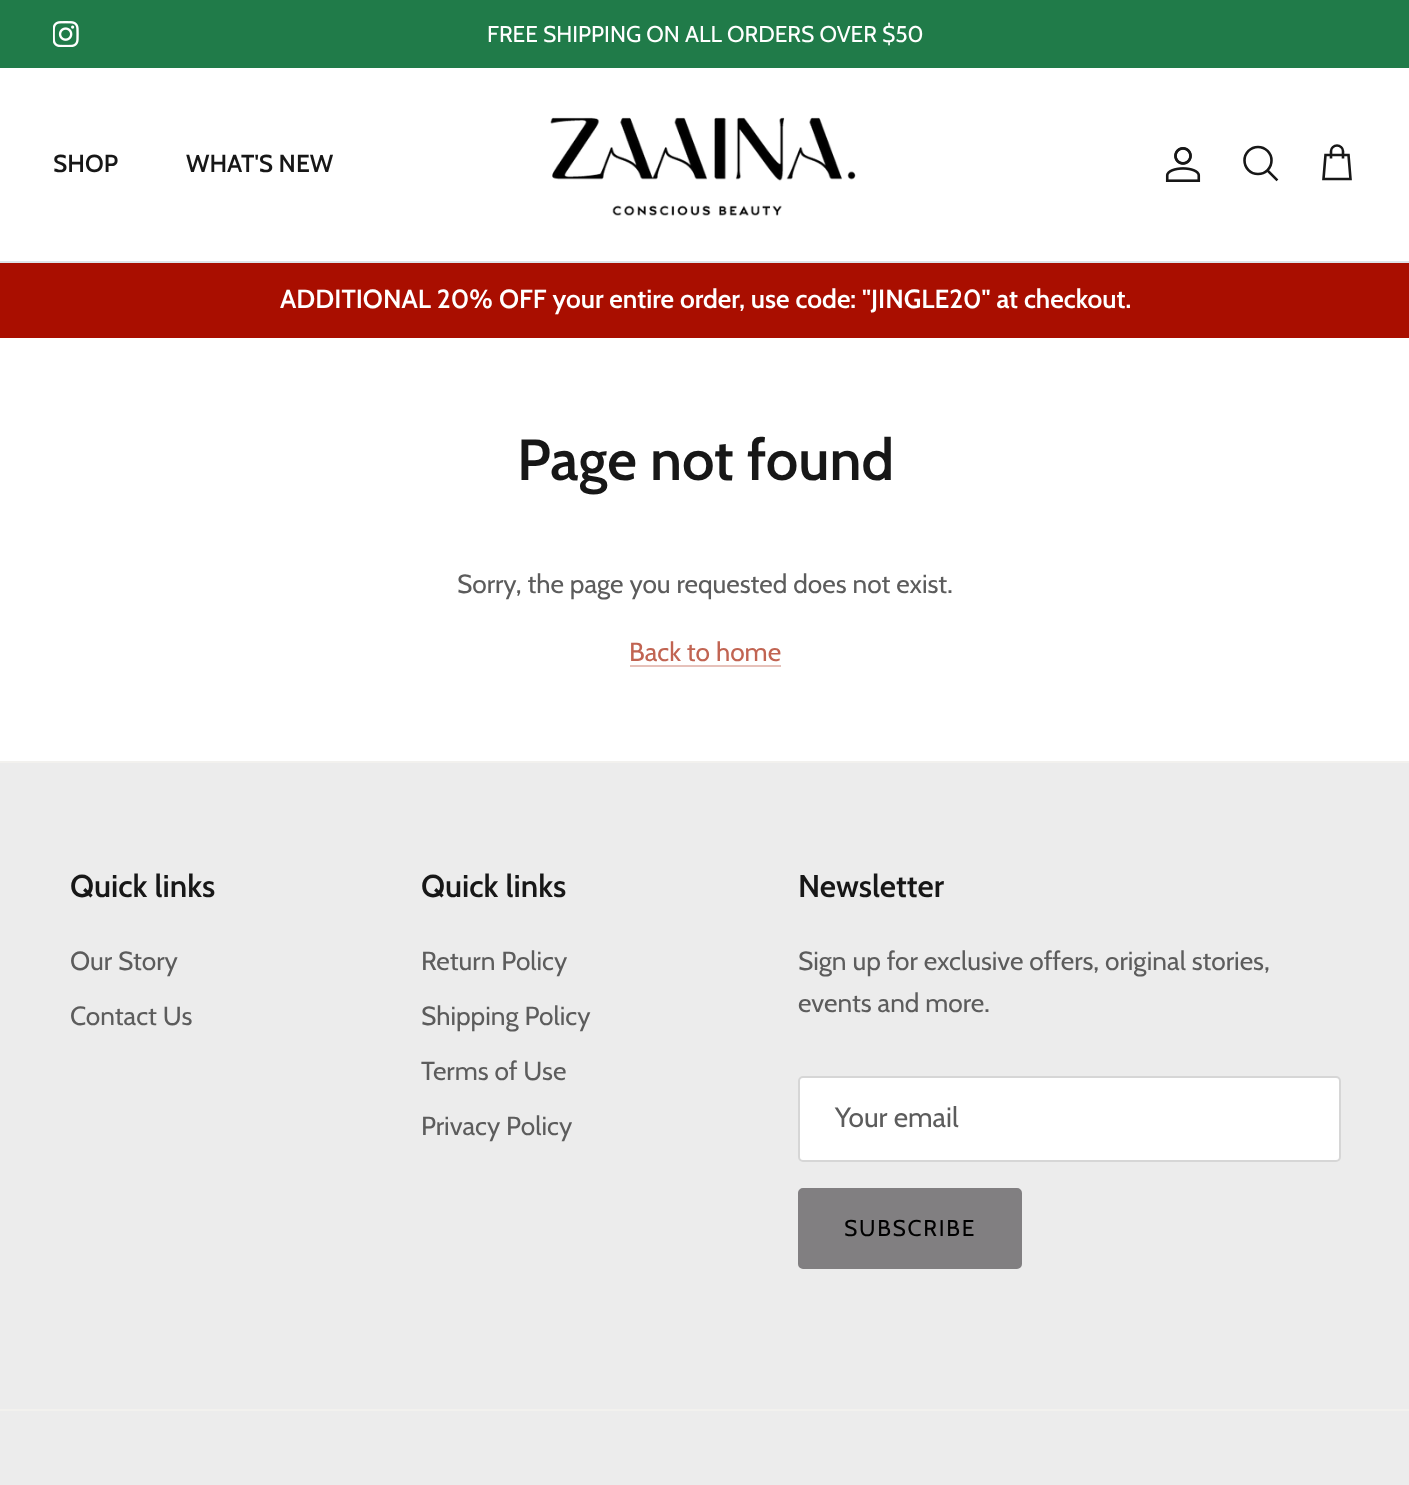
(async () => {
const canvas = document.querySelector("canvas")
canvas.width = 1409
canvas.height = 1485
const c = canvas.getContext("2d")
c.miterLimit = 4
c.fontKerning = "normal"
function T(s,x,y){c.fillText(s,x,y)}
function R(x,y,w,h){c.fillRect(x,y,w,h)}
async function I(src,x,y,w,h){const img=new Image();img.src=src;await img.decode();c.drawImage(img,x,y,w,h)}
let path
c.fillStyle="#fff"
R(0,0,1409,1485)
c.fillStyle="#207b49"
R(0,0,1409,68)
await I("1.png",53,21,26,26)
c.font="22.75px Cabin"
c.fillStyle="#fff"
T("FREE SHIPPING ON ALL ORDERS OVER $50",487,42)
c.fillStyle="#dfe3e8"
R(0,261,1409,2)
c.font="600 24.5px Cabin"
c.fillStyle="#171717"
T("SHOP",53,172)
T("WHAT'S NEW",186,172)
await I("2.png",550,117,306,99)
await I("3.png",1165,147,36,35)
c.beginPath()
c.arc(1258,160.5,13.5,0,7)
c.strokeStyle="#171717"
c.lineWidth=2.6
c.stroke()
path = new Path2D("M1268.5 171.5l8 8")
c.lineCap="square"
c.stroke(path)
path = new Path2D("M1343 158.5v-7.5c0-3-3-5.5-6-5.5c-3 0-6 2.5-6 5.5v7.5m-5.5-3.5h23l2 24h-27z")
c.lineCap="butt"
c.stroke(path)
c.fillStyle="#a90e00"
R(0,263,1409,75)
c.font="600 26.25px Cabin"
c.fillStyle="#fff"
T("ADDITIONAL 20% OFF your entire order, use code: \"JINGLE20\" at checkout.",280,308)
c.font="600 57.75px Cabin"
c.fillStyle="#171717"
T("Page not found",517,480)
c.font="26.25px Cabin"
c.fillStyle="#5c5c5c"
T("Sorry, the page you requested does not exist.",457,593)
c.fillStyle="#c16452"
T("Back to home",629,661)
c.fillStyle="#e6c1ba"
R(630,665,151,2)
c.fillStyle="#ececec"
R(0,763,1409,722)
c.fillStyle="#f2f1ee"
R(0,761,1409,2)
c.font="600 31.5px Cabin"
c.fillStyle="#171717"
T("Quick links",70,897)
c.font="26.25px Cabin"
c.fillStyle="#5c5c5c"
T("Our Story",70,970)
T("Contact Us",70,1025)
c.font="600 31.5px Cabin"
c.fillStyle="#171717"
T("Quick links",421,897)
c.font="26.25px Cabin"
c.fillStyle="#5c5c5c"
T("Return Policy",421,970)
T("Shipping Policy",421,1025)
T("Terms of Use",421,1080)
T("Privacy Policy",421,1135)
c.font="600 31.5px Cabin"
c.fillStyle="#171717"
T("Newsletter",798,897)
c.font="26.25px Cabin"
c.fillStyle="#5c5c5c"
T("Sign up for exclusive offers, original stories,",798,970)
T("events and more.",798,1012)
c.fillStyle="#fff"
c.beginPath()
c.roundRect(799,1077,541,84,4)
c.fill()
c.strokeStyle="#d6d6d6"
c.lineWidth=2
c.stroke()
c.font="28px Cabin"
c.fillStyle="#5c5c5c"
T("Your email",835,1127)
c.fillStyle="#817f81"
c.beginPath()
c.roundRect(799,1189,222,79,4)
c.fill()
c.strokeStyle="#817f81"
c.stroke()
c.letterSpacing="1.75px"
c.font="22.75px Cabin"
c.fillStyle="#000"
T("SUBSCRIBE",844,1236)
c.fillStyle="#f2f1ee"
R(0,1409,1409,2)
})()
